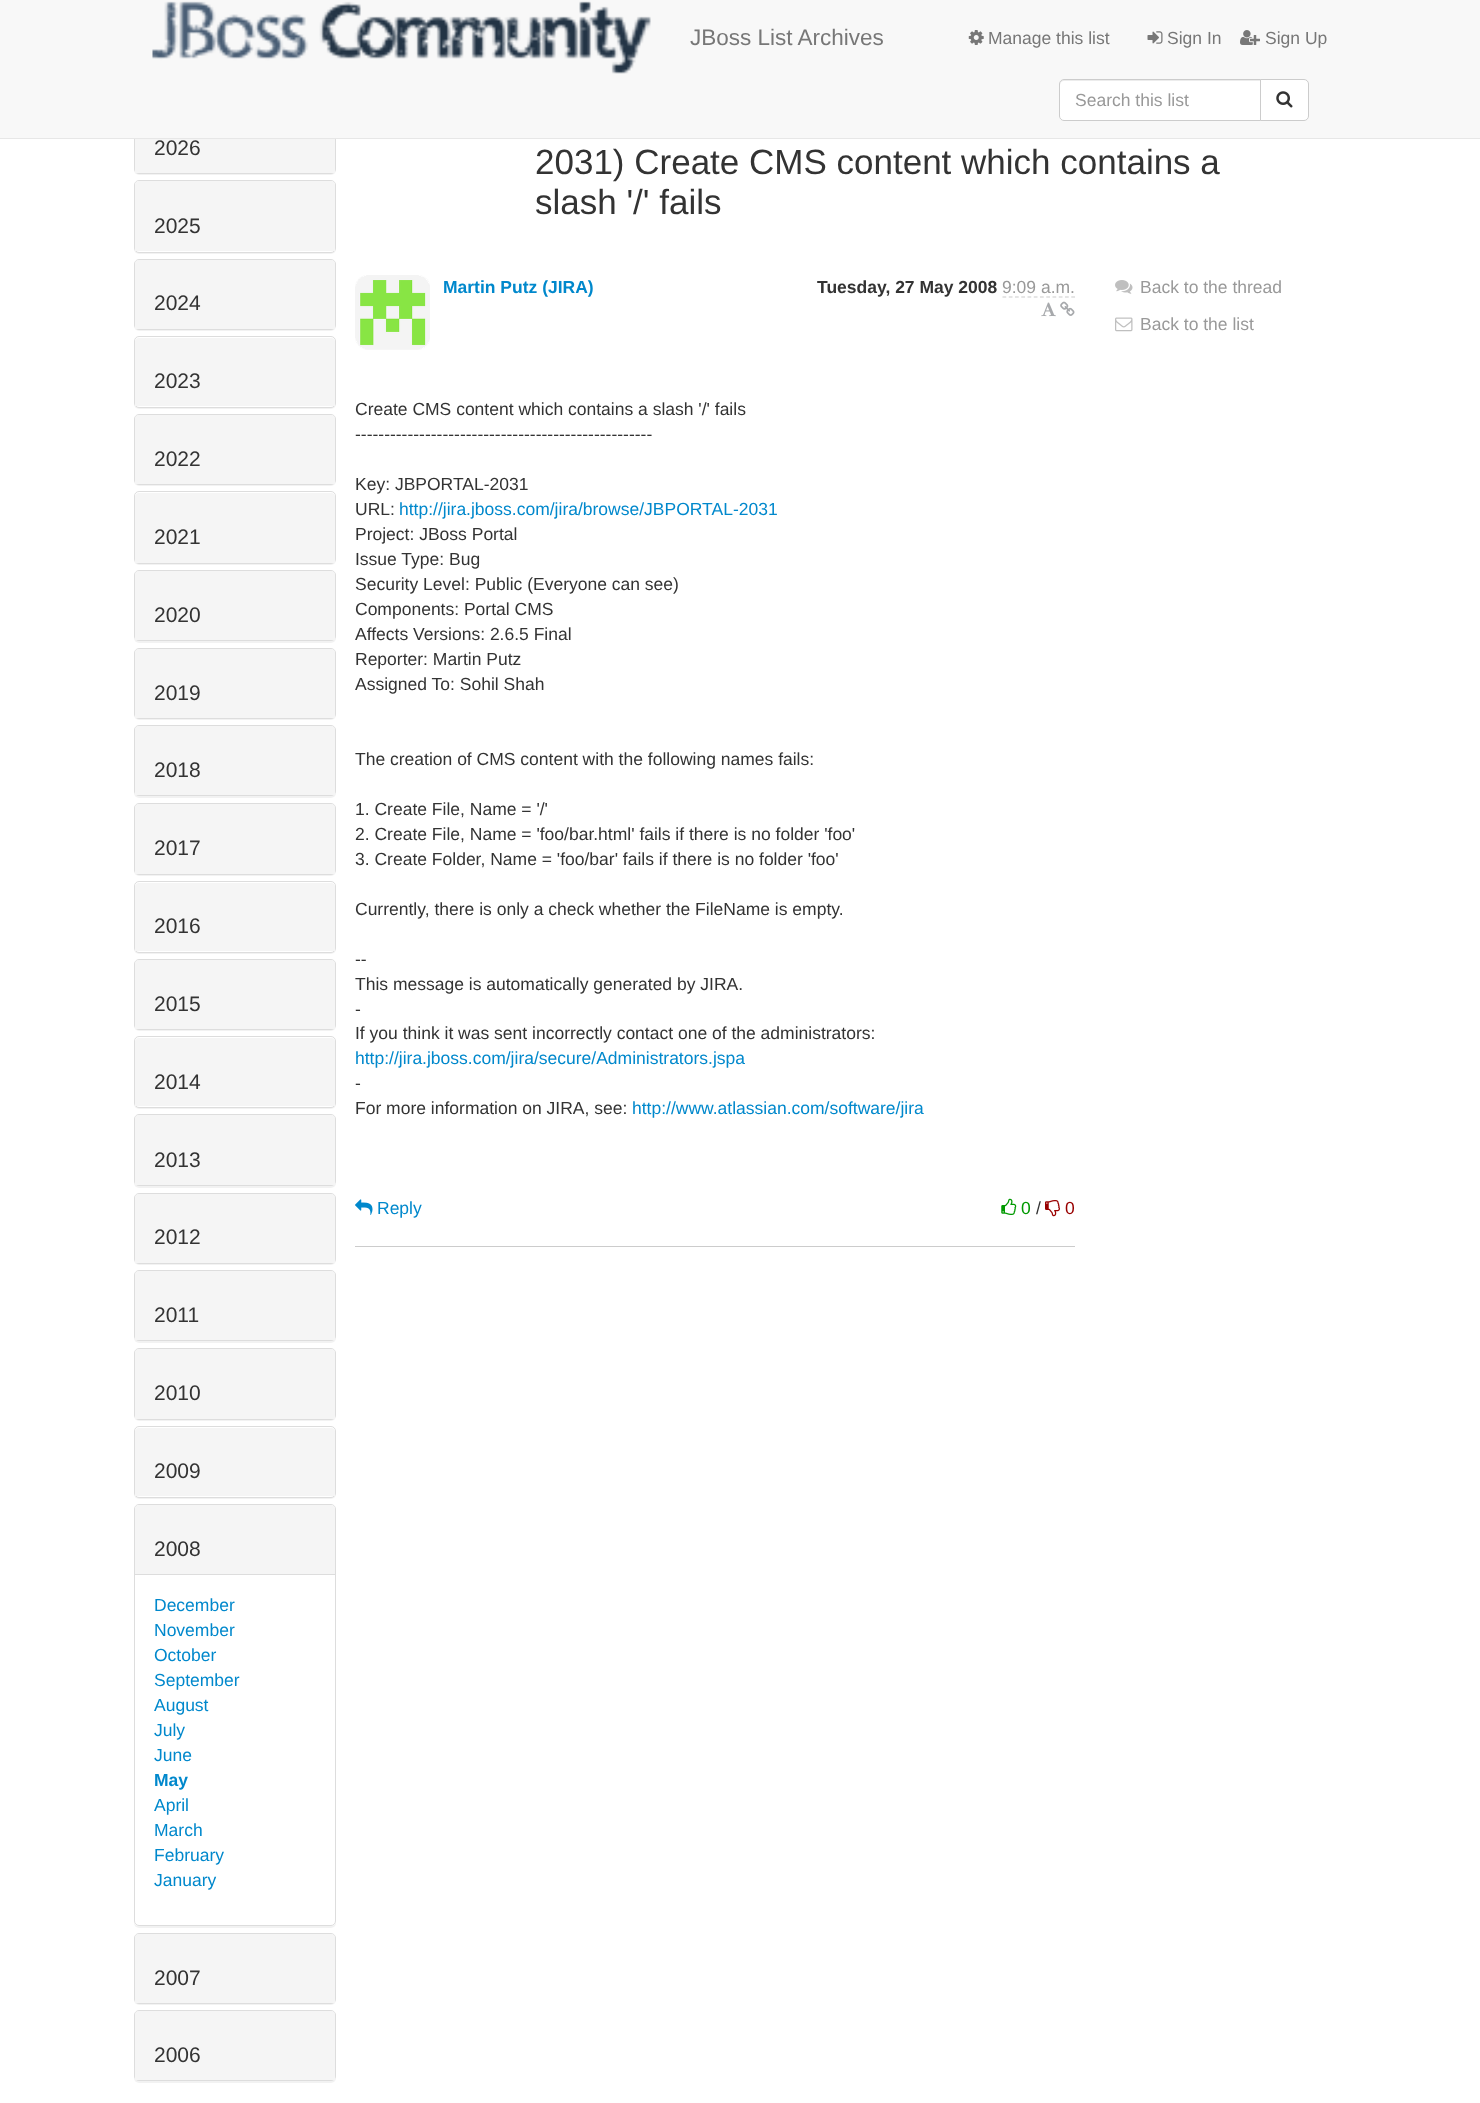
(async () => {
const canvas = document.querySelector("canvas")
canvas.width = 1480
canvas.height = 2103
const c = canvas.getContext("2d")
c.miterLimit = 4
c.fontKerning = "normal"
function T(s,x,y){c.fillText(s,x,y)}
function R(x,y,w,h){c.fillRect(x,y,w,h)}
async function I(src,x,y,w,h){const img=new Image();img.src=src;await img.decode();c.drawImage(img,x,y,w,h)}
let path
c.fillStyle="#fff"
R(0,0,1480,2103)
c.fillStyle="#0000000d"
c.filter="blur(0.5px)"
c.beginPath()
c.roundRect(134,104,202,71,5)
c.fill()
c.filter="none"
c.beginPath()
c.roundRect(134.5,103.5,201,70,4.5)
c.strokeStyle="#ddd"
c.stroke()
c.fillStyle="#f8f8f8"
R(0,0,1480,138)
c.fillStyle="#e7e7e7"
R(0,138,1480,1)
await I("1.png",152,1,499,73)
c.font="22.5px Liberation Sans"
c.fillStyle="#777"
T("JBoss List Archives",690,45)
await I("2.png",968,30,16,15)
c.font="17.5px Liberation Sans"
T("Manage this list",988,44)
await I("3.png",1147,31,16,13)
T("Sign In",1167,44)
await I("4.png",1240,30,20,15)
T("Sign Up",1265,44)
c.fillStyle="#fff"
c.beginPath()
c.roundRect(1059,79,202,42,[5,0,0,5])
c.fill()
c.fillStyle="#ececec"
path = new Path2D("M1064 81h196v-1h-196c-3 0-4 2-4 5c0-2 2-4 4-4z")
c.fill(path)
c.beginPath()
c.roundRect(1059.5,79.5,201,41,[4.5,0,0,4.5])
c.strokeStyle="#ccc"
c.stroke()
c.fillStyle="#999"
T("Search this list",1075,106)
c.fillStyle="#fff"
c.beginPath()
c.roundRect(1260.5,79.5,48,41,[0,4.5,4.5,0])
c.fill()
c.stroke()
await I("5.png",1276,91,17,17)
c.fillStyle="#f5f5f5"
R(135,139,200,34)
c.font="21px Liberation Sans"
c.fillStyle="#333"
T("2026",154,155)
c.fillStyle="#0000000d"
c.filter="blur(0.5px)"
c.beginPath()
c.roundRect(134,181,202,73,5)
c.fill()
c.filter="none"
c.fillStyle="#fff"
c.beginPath()
c.roundRect(134.5,180.5,201,72,4.5)
c.fill()
c.strokeStyle="#ddd"
c.stroke()
c.fillStyle="#f5f5f5"
c.beginPath()
c.roundRect(135,181,200,70,[4,4,0,0])
c.fill()
c.fillStyle="#333"
T("2025",154,233)
c.fillStyle="#0000000d"
c.filter="blur(0.5px)"
c.beginPath()
c.roundRect(134,260,202,71,5)
c.fill()
c.filter="none"
c.beginPath()
c.roundRect(134.5,259.5,201,70,4.5)
c.stroke()
c.fillStyle="#f5f5f5"
c.beginPath()
c.roundRect(135,260,200,69,[4,4,0,0])
c.fill()
c.fillStyle="#333"
T("2024",154,310)
c.fillStyle="#0000000d"
c.filter="blur(0.5px)"
c.beginPath()
c.roundRect(134,338,202,71,5)
c.fill()
c.filter="none"
c.fillStyle="#fff"
c.beginPath()
c.roundRect(134.5,336.5,201,71,4.5)
c.fill()
c.stroke()
c.fillStyle="#f5f5f5"
c.beginPath()
c.roundRect(135,338,200,68,[4,4,0,0])
c.fill()
c.fillStyle="#333"
T("2023",154,388)
c.fillStyle="#0000000d"
c.filter="blur(0.5px)"
c.beginPath()
c.roundRect(134,415,202,71,5)
c.fill()
c.filter="none"
c.beginPath()
c.roundRect(134.5,414.5,201,70,4.5)
c.stroke()
c.fillStyle="#f5f5f5"
c.beginPath()
c.roundRect(135,415,200,69,[4,4,0,0])
c.fill()
c.fillStyle="#333"
T("2022",154,466)
c.fillStyle="#0000000d"
c.filter="blur(0.5px)"
c.beginPath()
c.roundRect(134,493,202,72,5)
c.fill()
c.filter="none"
c.fillStyle="#fff"
c.beginPath()
c.roundRect(134.5,491.5,201,72,4.5)
c.fill()
c.stroke()
c.fillStyle="#f5f5f5"
c.beginPath()
c.roundRect(135,493,200,70,[4,4,0,0])
c.fill()
c.fillStyle="#333"
T("2021",154,544)
c.fillStyle="#0000000d"
c.filter="blur(0.5px)"
c.beginPath()
c.roundRect(134,571,202,72,5)
c.fill()
c.filter="none"
c.beginPath()
c.roundRect(134.5,570.5,201,70,4.5)
c.stroke()
c.fillStyle="#f5f5f5"
c.beginPath()
c.roundRect(135,571,200,69,[4,4,0,0])
c.fill()
c.fillStyle="#333"
T("2020",154,622)
c.fillStyle="#0000000d"
c.filter="blur(0.5px)"
c.beginPath()
c.roundRect(134,649,202,71,5)
c.fill()
c.filter="none"
c.beginPath()
c.roundRect(134.5,648.5,201,70,4.5)
c.stroke()
c.fillStyle="#f5f5f5"
c.beginPath()
c.roundRect(135,649,200,69,[4,4,0,0])
c.fill()
c.fillStyle="#333"
T("2019",154,700)
c.fillStyle="#0000000d"
c.filter="blur(0.5px)"
c.beginPath()
c.roundRect(134,726,202,72,5)
c.fill()
c.filter="none"
c.beginPath()
c.roundRect(134.5,725.5,201,70,4.5)
c.stroke()
c.fillStyle="#f5f5f5"
c.beginPath()
c.roundRect(135,726,200,69,[4,4,0,0])
c.fill()
c.fillStyle="#333"
T("2018",154,777)
c.fillStyle="#0000000d"
c.filter="blur(0.5px)"
c.beginPath()
c.roundRect(134,804,202,72,5)
c.fill()
c.filter="none"
c.beginPath()
c.roundRect(134.5,803.5,201,71,4.5)
c.stroke()
c.fillStyle="#f5f5f5"
c.beginPath()
c.roundRect(135,804,200,70,[4,4,0,0])
c.fill()
c.fillStyle="#333"
T("2017",154,855)
c.fillStyle="#0000000d"
c.filter="blur(0.5px)"
c.beginPath()
c.roundRect(134,883,202,71,5)
c.fill()
c.filter="none"
c.fillStyle="#fff"
c.beginPath()
c.roundRect(134.5,881.5,201,71,4.5)
c.fill()
c.stroke()
c.fillStyle="#f5f5f5"
c.beginPath()
c.roundRect(135,883,200,68,[4,4,0,0])
c.fill()
c.fillStyle="#333"
T("2016",154,933)
c.fillStyle="#0000000d"
c.filter="blur(0.5px)"
c.beginPath()
c.roundRect(134,960,202,71,5)
c.fill()
c.filter="none"
c.beginPath()
c.roundRect(134.5,959.5,201,70,4.5)
c.stroke()
c.fillStyle="#f5f5f5"
c.beginPath()
c.roundRect(135,960,200,69,[4,4,0,0])
c.fill()
c.fillStyle="#333"
T("2015",154,1011)
c.fillStyle="#0000000d"
c.filter="blur(0.5px)"
c.beginPath()
c.roundRect(134,1038,202,71,5)
c.fill()
c.filter="none"
c.fillStyle="#fff"
c.beginPath()
c.roundRect(134.5,1036.5,201,71,4.5)
c.fill()
c.stroke()
c.fillStyle="#f5f5f5"
c.beginPath()
c.roundRect(135,1038,200,68,[4,4,0,0])
c.fill()
c.fillStyle="#333"
T("2014",154,1089)
c.fillStyle="#0000000d"
c.filter="blur(0.5px)"
c.beginPath()
c.roundRect(134,1115,202,73,5)
c.fill()
c.filter="none"
c.beginPath()
c.roundRect(134.5,1114.5,201,71,4.5)
c.stroke()
c.fillStyle="#f5f5f5"
c.beginPath()
c.roundRect(135,1115,200,70,[4,4,0,0])
c.fill()
c.fillStyle="#333"
T("2013",154,1167)
c.fillStyle="#0000000d"
c.filter="blur(0.5px)"
c.beginPath()
c.roundRect(134,1194,202,71,5)
c.fill()
c.filter="none"
c.beginPath()
c.roundRect(134.5,1193.5,201,70,4.5)
c.stroke()
c.fillStyle="#f5f5f5"
c.beginPath()
c.roundRect(135,1194,200,69,[4,4,0,0])
c.fill()
c.fillStyle="#333"
T("2012",154,1244)
c.fillStyle="#0000000d"
c.filter="blur(0.5px)"
c.beginPath()
c.roundRect(134,1271,202,72,5)
c.fill()
c.filter="none"
c.beginPath()
c.roundRect(134.5,1270.5,201,70,4.5)
c.stroke()
c.fillStyle="#f5f5f5"
c.beginPath()
c.roundRect(135,1271,200,69,[4,4,0,0])
c.fill()
c.fillStyle="#333"
T("2011",154,1322)
c.fillStyle="#0000000d"
c.filter="blur(0.5px)"
c.beginPath()
c.roundRect(134,1349,202,72,5)
c.fill()
c.filter="none"
c.beginPath()
c.roundRect(134.5,1348.5,201,71,4.5)
c.stroke()
c.fillStyle="#f5f5f5"
c.beginPath()
c.roundRect(135,1349,200,70,[4,4,0,0])
c.fill()
c.fillStyle="#333"
T("2010",154,1400)
c.fillStyle="#0000000d"
c.filter="blur(0.5px)"
c.beginPath()
c.roundRect(134,1428,202,71,5)
c.fill()
c.filter="none"
c.fillStyle="#fff"
c.beginPath()
c.roundRect(134.5,1426.5,201,71,4.5)
c.fill()
c.stroke()
c.fillStyle="#f5f5f5"
c.beginPath()
c.roundRect(135,1428,200,68,[4,4,0,0])
c.fill()
c.fillStyle="#333"
T("2009",154,1478)
c.save()
path = new Path2D("M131 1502h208v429h-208zm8 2h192c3 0 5 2 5 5v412c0 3-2 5-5 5h-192c-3 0-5-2-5-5v-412c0-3 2-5 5-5z")
c.clip(path,"evenodd")
c.fillStyle="#0000000d"
c.filter="blur(0.5px)"
c.beginPath()
c.roundRect(134,1505,202,423,5)
c.fill()
c.filter="none"
c.restore()
c.beginPath()
c.roundRect(134.5,1504.5,201,421,4.5)
c.stroke()
c.fillStyle="#f5f5f5"
c.beginPath()
c.roundRect(135,1505,200,69,[4,4,0,0])
c.fill()
c.fillStyle="#333"
T("2008",154,1556)
c.fillStyle="#ddd"
R(135,1574,200,1)
c.font="17.5px Liberation Sans"
c.fillStyle="#08c"
T("December",154,1611)
T("November",154,1636)
T("October",154,1661)
T("September",154,1686)
T("August",154,1711)
T("July",154,1736)
T("June",154,1761)
c.font="bold 17.5px Liberation Sans"
T("May",154,1786)
c.font="17.5px Liberation Sans"
T("April",154,1811)
T("March",154,1836)
T("February",154,1861)
T("January",154,1886)
c.fillStyle="#0000000d"
c.filter="blur(0.5px)"
c.beginPath()
c.roundRect(134,1934,202,71,5)
c.fill()
c.filter="none"
c.beginPath()
c.roundRect(134.5,1933.5,201,70,4.5)
c.stroke()
c.fillStyle="#f5f5f5"
c.beginPath()
c.roundRect(135,1934,200,69,[4,4,0,0])
c.fill()
c.font="21px Liberation Sans"
c.fillStyle="#333"
T("2007",154,1985)
c.fillStyle="#0000000d"
c.filter="blur(0.5px)"
c.beginPath()
c.roundRect(134,2011,202,72,5)
c.fill()
c.filter="none"
c.beginPath()
c.roundRect(134.5,2010.5,201,70,4.5)
c.stroke()
c.fillStyle="#f5f5f5"
c.beginPath()
c.roundRect(135,2011,200,69,[4,4,0,0])
c.fill()
c.fillStyle="#333"
T("2006",154,2062)
c.font="35px Liberation Sans"
T("2031) Create CMS content which contains a",535,174)
T("slash '/' fails",535,214)
await I("6.png",355,275,75,75)
c.font="bold 17.5px Liberation Sans"
c.fillStyle="#08c"
T("Martin Putz (JIRA)",443,293)
c.fillStyle="#333"
T("Tuesday, 27 May 2008",817,293)
c.font="17.5px Liberation Sans"
c.fillStyle="#999"
T("9:09 a.m.",1002,293)
path = new Path2D("M1002.5 297h72.5")
c.strokeStyle="#ccc"
c.lineWidth=1.2
c.setLineDash([3.75,2.5])
c.stroke(path)
await I("7.png",1041,302,15,15)
await I("8.png",1060,301,15,15)
c.fillStyle="#333"
T("Create CMS content which contains a slash '/' fails",355,415)
T("---------------------------------------------------",355,440)
T("Key: JBPORTAL-2031",355,490)
T("URL:",355,515)
c.fillStyle="#08c"
T("http://jira.jboss.com/jira/browse/JBPORTAL-2031",399,515)
c.fillStyle="#333"
T("Project: JBoss Portal",355,540)
T("Issue Type: Bug",355,565)
T("Security Level: Public (Everyone can see)",355,590)
T("Components: Portal CMS",355,615)
T("Affects Versions: 2.6.5 Final",355,640)
T("Reporter: Martin Putz",355,665)
T("Assigned To: Sohil Shah",355,690)
T("The creation of CMS content with the following names fails:",355,765)
T("1. Create File, Name = '/'",355,815)
T("2. Create File, Name = 'foo/bar.html' fails if there is no folder 'foo'",355,840)
T("3. Create Folder, Name = 'foo/bar' fails if there is no folder 'foo'",355,865)
T("Currently, there is only a check whether the FileName is empty.",355,915)
T("--",355,965)
T("This message is automatically generated by JIRA.",355,990)
T("-",355,1015)
T("If you think it was sent incorrectly contact one of the administrators:",355,1039)
c.fillStyle="#08c"
T("http://jira.jboss.com/jira/secure/Administrators.jspa",355,1064)
c.fillStyle="#333"
T("-",355,1089)
T("For more information on JIRA, see:",355,1114)
c.fillStyle="#08c"
T("http://www.atlassian.com/software/jira",632,1114)
c.fillStyle="#ccc"
R(355,1246,720,1)
await I("9.png",355,1199,18,16)
c.fillStyle="#08c"
T("Reply",377,1214)
await I("10.png",1001,1198,16,17)
c.fillStyle="#090"
T("0",1021,1214)
c.fillStyle="#333"
T("/",1036,1214)
await I("11.png",1045,1200,15,17)
c.fillStyle="#900"
T("0",1065,1214)
await I("12.png",1115,280,18,14)
c.fillStyle="#999"
T("Back to the thread",1140,293)
await I("13.png",1115,317,18,15)
T("Back to the list",1140,330)
})()
